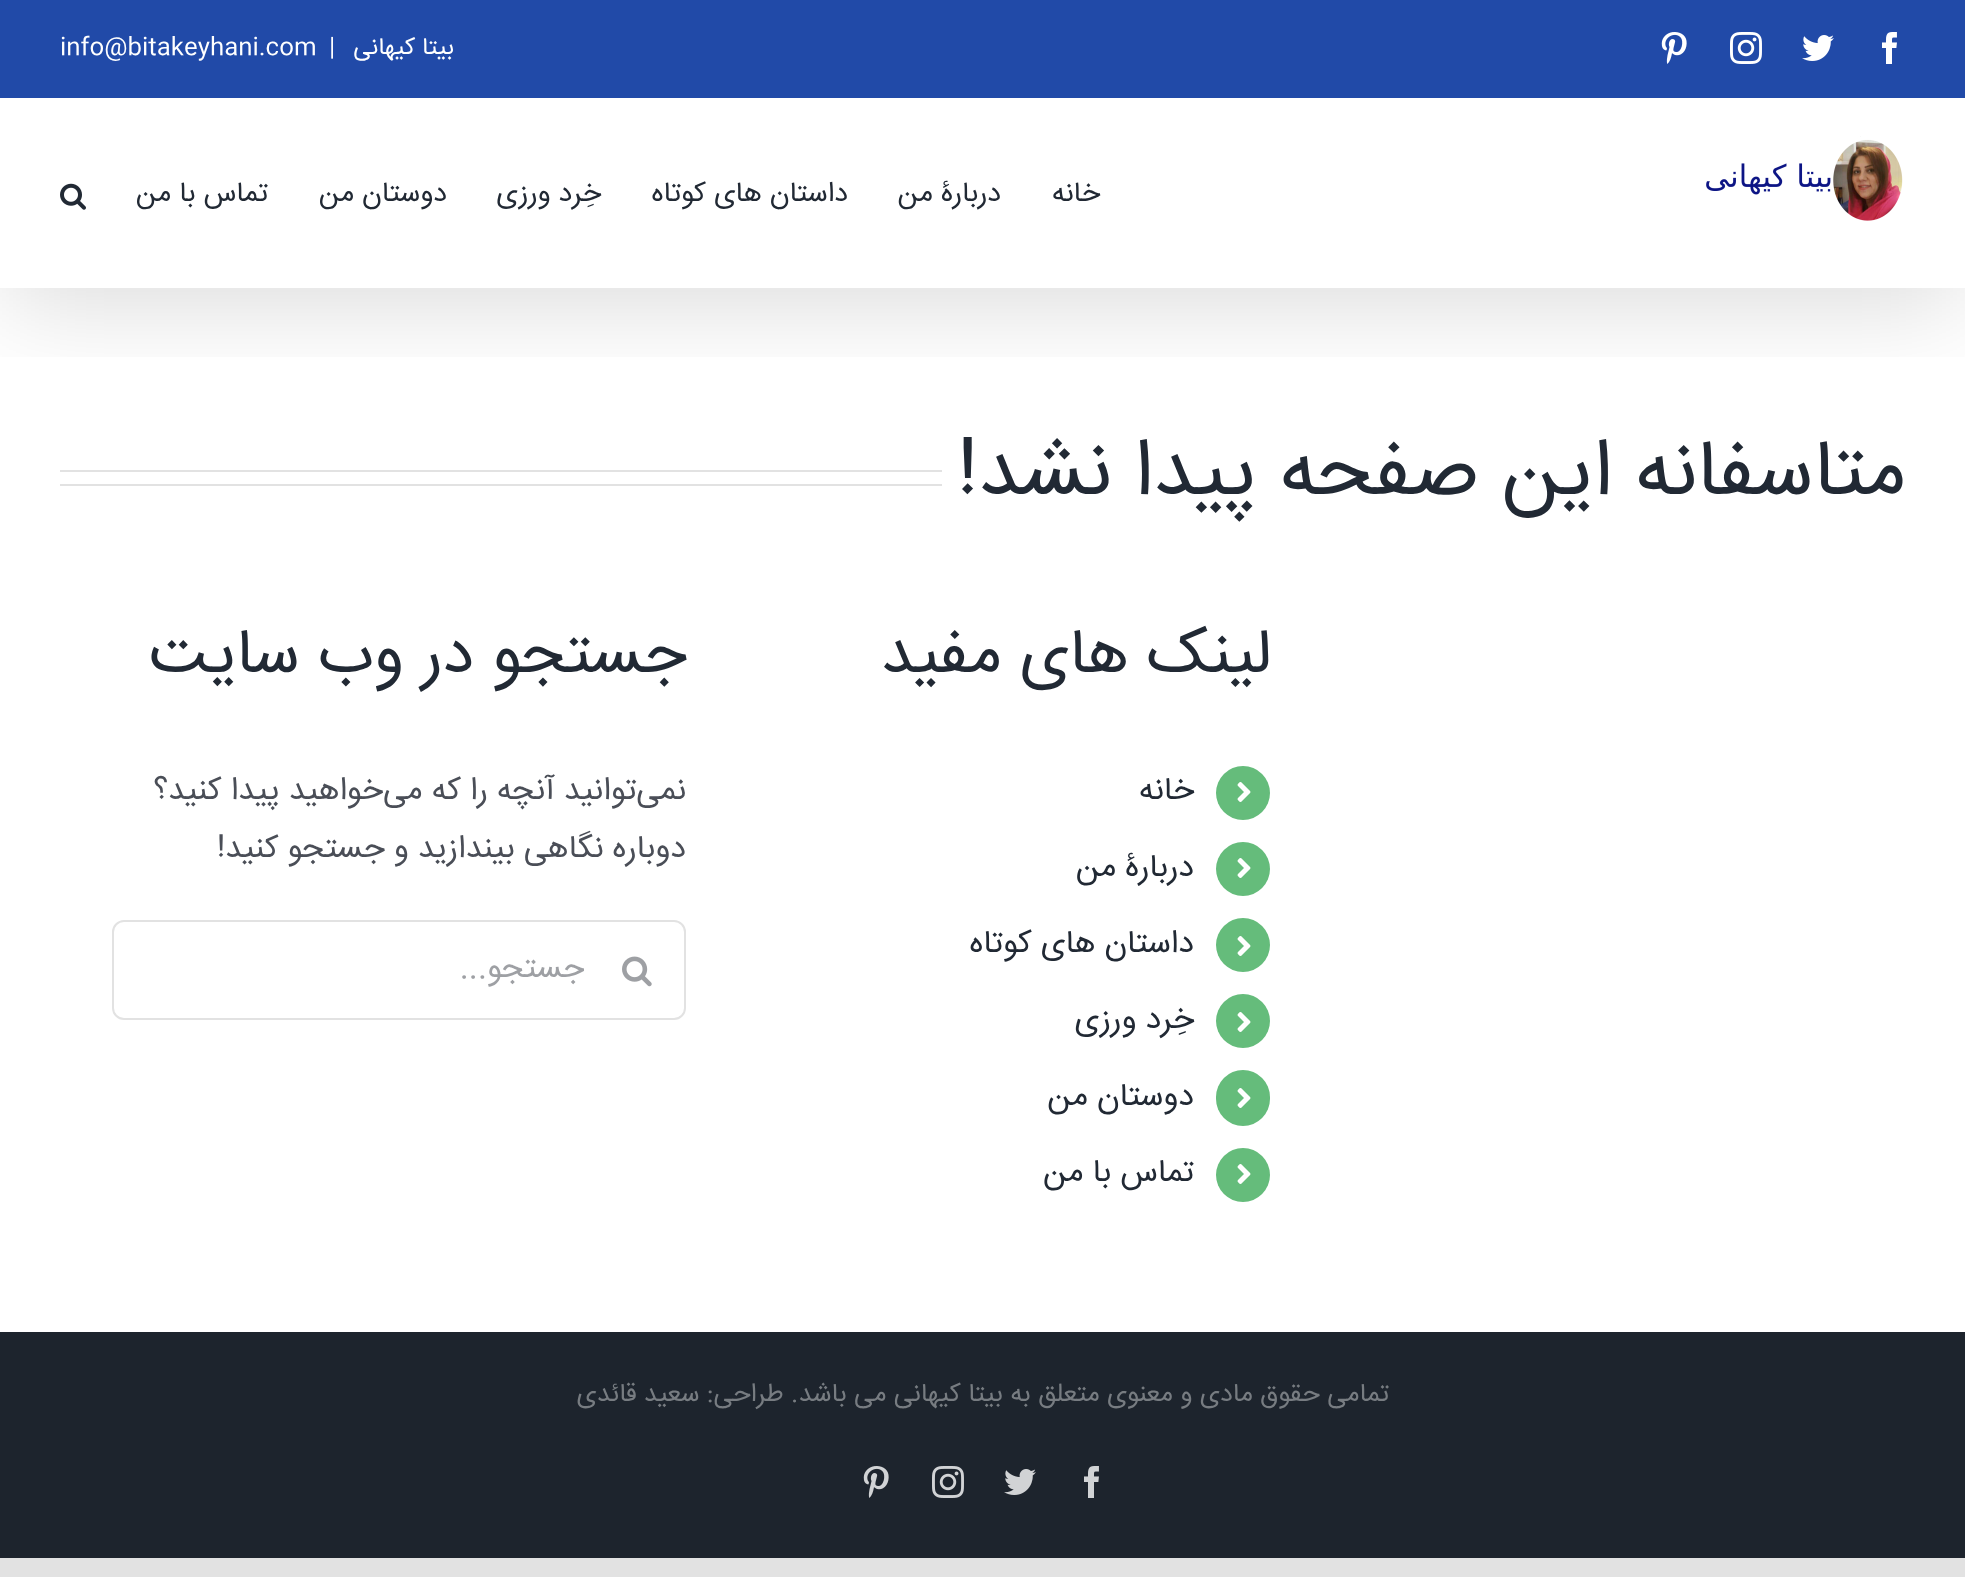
(async () => {
const canvas = document.querySelector("canvas")
canvas.width = 1965
canvas.height = 1577
const c = canvas.getContext("2d")
c.miterLimit = 4
c.fontKerning = "normal"
function T(s,x,y){c.fillText(s,x,y)}
function R(x,y,w,h){c.fillRect(x,y,w,h)}
function Q(x,y,w,h,r){c.beginPath();c.roundRect(x,y,w,h,r);c.fill()}
async function I(src,x,y,w,h){const img=new Image();img.src=src;await img.decode();c.drawImage(img,x,y,w,h)}
c.fillStyle="#e2e2e2"
R(0,0,1965,1577)
c.fillStyle="#fff"
R(0,98,1965,1234)
c.save()
c.beginPath()
c.rect(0,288,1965,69)
c.clip()
c.fillStyle="#00000024"
c.filter="blur(50px)"
c.beginPath()
c.rect(4,24,1958,280)
c.fill()
c.filter="none"
c.restore()
c.fillStyle="#214aa8"
R(0,0,1965,98)
await I("1.png",1882,32,15,32)
await I("2.png",1802,35,32,26)
await I("3.png",1730,32,32,32)
await I("4.png",1661,32,26,32)
c.direction="rtl"
c.font="24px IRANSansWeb"
c.fillStyle="#fff"
T("بیتا کیهانی",454,54)
c.direction="ltr"
T("|",329,54)
T("info@bitakeyhani.com",60,54)
await I("5.png",1706,136,197,85)
c.direction="rtl"
c.font="28px IRANSansWeb"
c.fillStyle="#212934"
T("خانه",1100,201)
T("دربارۀ من",1001,201)
T("داستان های کوتاه",848,201)
T("خِرد ورزی",601,201)
T("دوستان من",447,201)
T("تماس با من",268,201)
await I("6.png",60,183,26,27)
c.font="80px IRANSansWeb"
T("متاسفانه اين صفحه پيدا نشد!",1906,494)
c.fillStyle="#e2e2e2"
R(60,470,882,2)
R(60,484,882,2)
c.font="64px IRANSansWeb"
c.fillStyle="#212934"
T("لینک های مفید",1271,672)
c.fillStyle="#65bc7b"
c.beginPath()
c.arc(1243,793,27,0,7)
c.fill()
await I("7.png",1237,782,14,20)
c.font="32px IRANSansWeb"
c.fillStyle="#212934"
T("خانه",1194,799)
c.fillStyle="#65bc7b"
c.beginPath()
c.arc(1243,869,27,0,7)
c.fill()
await I("7.png",1237,858,14,20)
c.fillStyle="#212934"
T("دربارۀ من",1194,876)
c.fillStyle="#65bc7b"
c.beginPath()
c.arc(1243,945,27,0,7)
c.fill()
await I("7.png",1237,936,14,20)
c.fillStyle="#212934"
T("داستان های کوتاه",1194,952)
c.fillStyle="#65bc7b"
c.beginPath()
c.arc(1243,1021,27,0,7)
c.fill()
await I("7.png",1237,1012,14,20)
c.fillStyle="#212934"
T("خِرد ورزی",1194,1028)
c.fillStyle="#65bc7b"
Q(1216,1070,54,56,27)
await I("7.png",1237,1088,14,20)
c.fillStyle="#212934"
T("دوستان من",1194,1105)
c.fillStyle="#65bc7b"
c.beginPath()
c.arc(1243,1175,27,0,7)
c.fill()
await I("7.png",1237,1164,14,20)
c.fillStyle="#212934"
T("تماس با من",1194,1181)
c.font="64px IRANSansWeb"
T("جستجو در وب سايت",686,672)
c.font="32px IRANSansWeb"
c.fillStyle="#4a4e57"
T("نمی‌توانید آنچه را که می‌خواهید پیدا کنید؟",686,799)
T("دوباره نگاهی بیندازید و جستجو کنید!",686,857)
c.beginPath()
c.roundRect(113,921,572,98,11)
c.strokeStyle="#e2e2e2"
c.lineWidth=2
c.stroke()
await I("8.png",622,956,30,31)
c.save()
c.beginPath()
c.rect(174,944,410,54)
c.clip()
c.fillStyle="#9ea0a4"
T("جستجو...",584,977)
c.restore()
c.fillStyle="#1d242d"
R(0,1332,1965,226)
c.font="26px IRANSansWeb"
c.fillStyle="#777c81"
T("تمامی حقوق مادی و معنوی متعلق به بیتا کیهانی می باشد. طراحی: سعید قائدی",1389,1401)
await I("9.png",1084,1466,15,32)
await I("10.png",1004,1469,32,26)
await I("11.png",932,1466,32,32)
await I("12.png",863,1466,26,32)
})()
